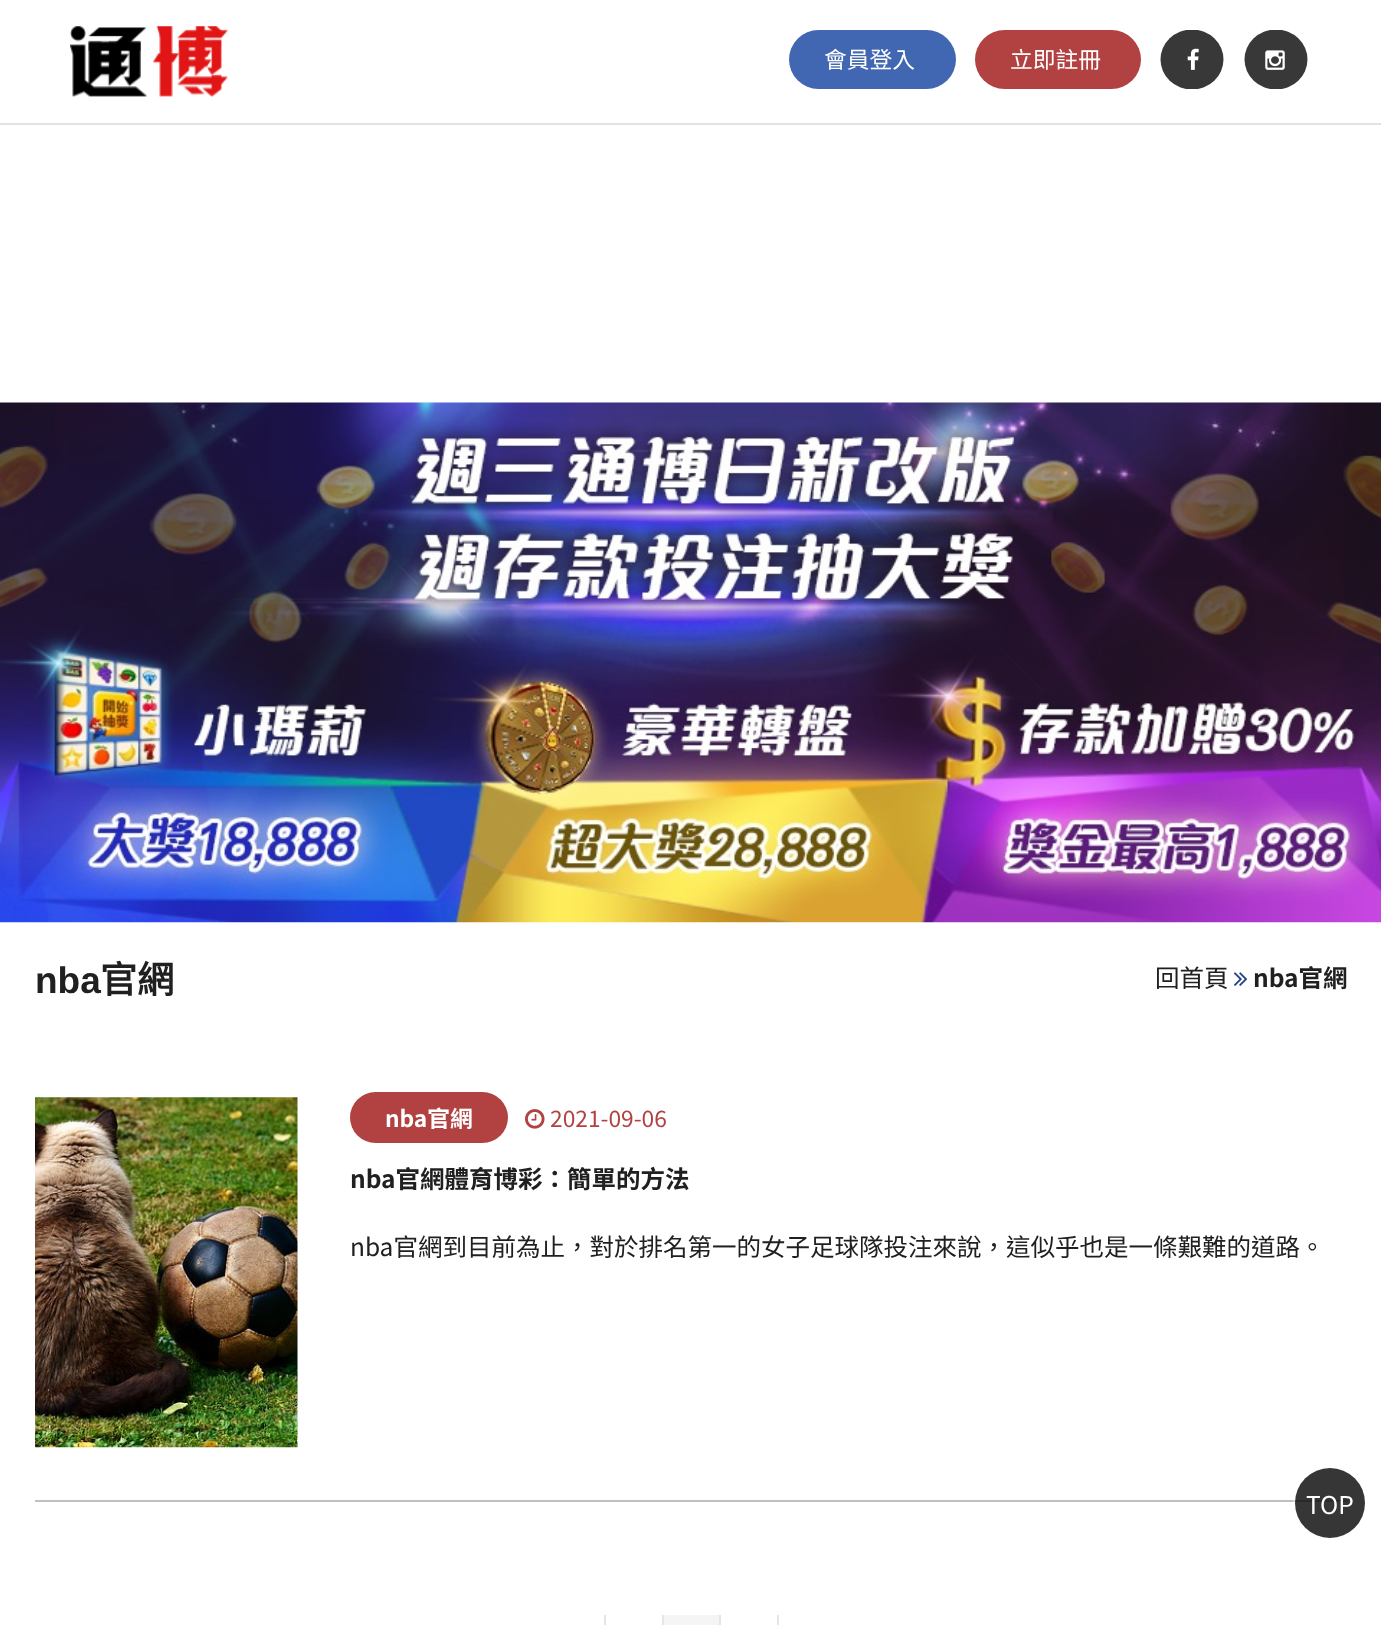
(async () => {
const canvas = document.querySelector("canvas")
canvas.width = 1381
canvas.height = 1625
const c = canvas.getContext("2d")
c.miterLimit = 4
c.fontKerning = "normal"
function T(s,x,y){c.fillText(s,x,y)}
function R(x,y,w,h){c.fillRect(x,y,w,h)}
function Q(x,y,w,h,r){c.beginPath();c.roundRect(x,y,w,h,r);c.fill()}
async function I(src,x,y,w,h){const img=new Image();img.src=src;await img.decode();c.drawImage(img,x,y,w,h)}
let path
c.fillStyle="#fff"
R(0,0,1381,1625)
c.fillStyle="#e2e2e2"
R(0,123,1381,2)
await I("1.png",70,26,158,71)
c.fillStyle="#4267b2"
Q(789,30,167,59,29.5)
c.font="22.75px Noto Sans TC"
c.fillStyle="#fff"
T("會員登入",824,68)
c.fillStyle="#b24242"
Q(975,30,166,59,29.5)
c.fillStyle="#fff"
T("立即註冊",1010,68)
c.save()
c.beginPath()
c.rect(781,30,533,59)
c.clip()
c.fillStyle="#383838"
c.beginPath()
c.ellipse(1192,59.5,31.5,30,0,0,7)
c.fill()
c.restore()
await I("2.png",1187,48,12,22)
c.save()
c.beginPath()
c.rect(781,30,533,59)
c.clip()
c.fillStyle="#383838"
c.beginPath()
c.ellipse(1276,59.5,31.5,30,0,0,7)
c.fill()
c.restore()
await I("3.png",1265,50,20,20)
await I("4.png",0,402,1381,521)
c.font="bold 37px Liberation Sans"
c.fillStyle="#212020"
T("nba",35,993)
c.font="bold 37px Noto Sans CJK TC"
T("官網",100,993)
c.font="24.5px Noto Sans TC"
T("回首頁",1155,987)
await I("5.png",1234,972,14,14)
c.font="bold 24.5px Noto Sans TC"
T("nba官網",1253,987)
c.fillStyle="#bfbfbf"
R(35,1500,1313,2)
await I("6.png",35,1097,263,351)
c.fillStyle="#b24242"
Q(350,1092,158,51,25.5)
c.font="bold 22.75px Noto Sans TC"
c.fillStyle="#fff"
T("nba官網",385,1127)
await I("7.png",525,1109,20,20)
c.font="22.75px Noto Sans TC"
c.fillStyle="#b24242"
T("2021-09-06",550,1127)
c.font="bold 24.5px Noto Sans TC"
c.fillStyle="#212020"
T("nba官網體育博彩：簡單的方法",350,1188)
c.font="24.5px Noto Sans TC"
T("nba官網到目前為止，對於排名第一的女子足球隊投注來說，這似乎也是一條艱難的道路。",350,1256)
c.save()
c.beginPath()
c.rect(35,1615,1313,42)
c.clip()
c.fillStyle="#e5e5e5"
path = new Path2D("M611 1606h51v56h-51c-4 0-7-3-7-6v-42c0-4 3-8 7-8zm0 2h51v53h-51c-3 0-5-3-5-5v-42c0-3 2-6 5-6z")
c.fill(path,"evenodd")
c.restore()
c.fillStyle="#e5e5e5"
R(662,1615,2,10)
c.fillStyle="#f5f5f5"
R(664,1615,55,10)
c.save()
c.beginPath()
c.rect(35,1615,1313,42)
c.clip()
path = new Path2D("M720 1608h52c3.5 0 6 2.5 6 6v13c0 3.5-2.5 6-6 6h-52z")
c.strokeStyle="#e5e5e5"
c.lineWidth=2
c.stroke(path)
c.restore()
c.save()
path = new Path2D("M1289 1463h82v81h-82zm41 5c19.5 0 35 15.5 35 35c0 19.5-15.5 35-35 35c-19.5 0-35-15.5-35-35c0-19.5 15.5-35 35-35z")
c.clip(path,"evenodd")
c.fillStyle="#ffffff6e"
c.filter="blur(1px)"
c.beginPath()
c.roundRect(1293,1467,74,73,36.5)
c.fill()
c.filter="none"
c.restore()
c.fillStyle="#000000c9"
c.beginPath()
c.arc(1330,1503,35,0,7)
c.fill()
c.fillStyle="#fff"
T("TOP",1306,1514)
})()
